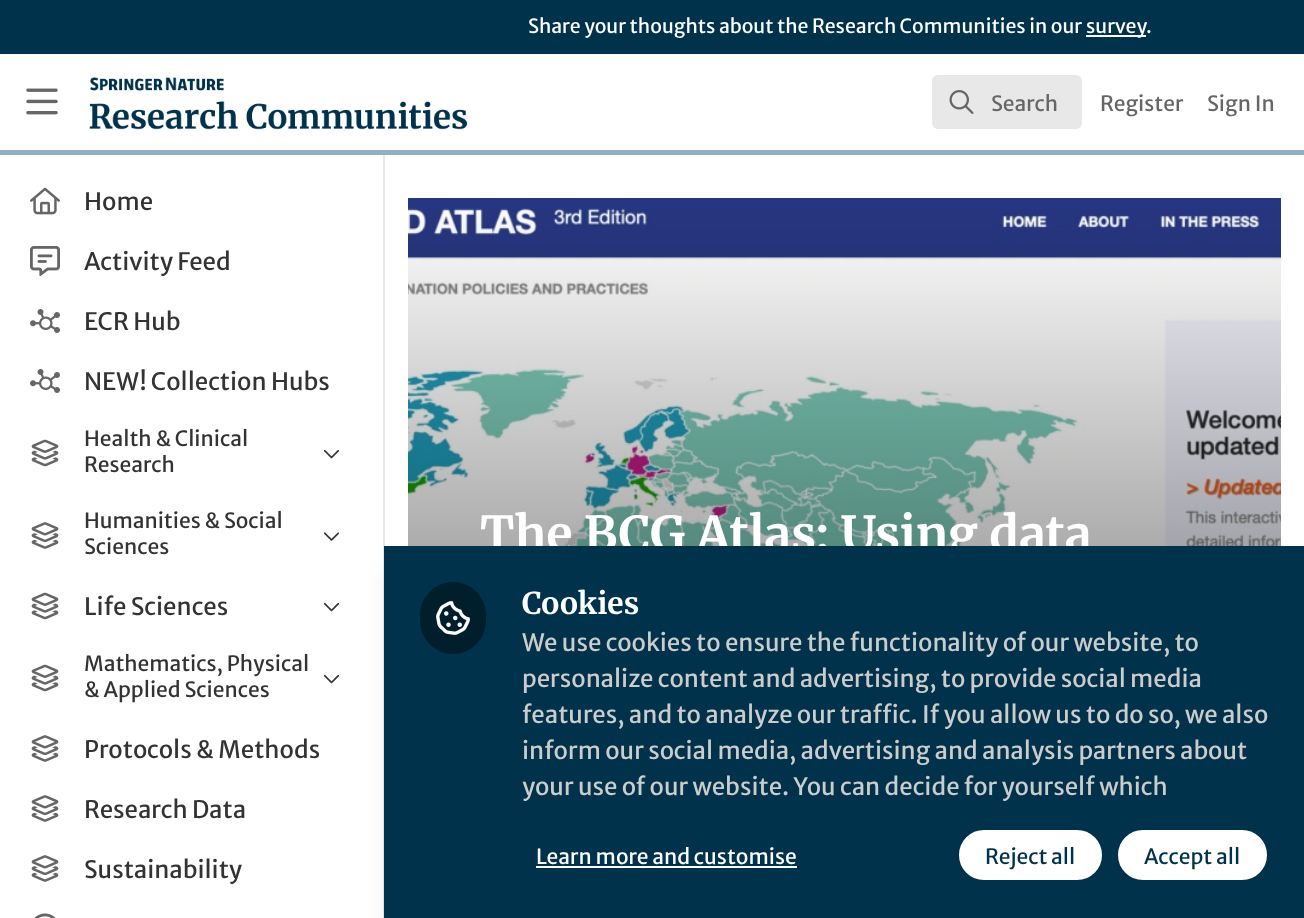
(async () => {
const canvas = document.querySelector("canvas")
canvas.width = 1304
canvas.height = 918
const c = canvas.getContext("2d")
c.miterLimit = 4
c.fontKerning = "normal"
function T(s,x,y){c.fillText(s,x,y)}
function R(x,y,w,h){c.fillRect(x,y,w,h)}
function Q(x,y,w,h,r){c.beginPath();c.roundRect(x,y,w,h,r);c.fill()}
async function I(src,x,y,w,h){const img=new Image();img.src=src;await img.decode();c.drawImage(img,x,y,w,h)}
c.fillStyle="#fff"
R(0,0,1304,918)
c.fillStyle="#01324b"
R(0,0,1304,54)
c.font="19.5px Merriweather Sans"
c.fillStyle="#fff"
T("Share your thoughts about the Research Communities in our",528,33)
R(1086,35,60,2)
T("survey",1086,33)
T(".",1146,33)
c.fillStyle="#e8e8e8"
R(383,150,2,768)
c.fillStyle="#90b0c2"
R(0,150,1304,5)
await I("1.png",26,88,32,27)
await I("2.png",89,77,379,53)
c.fillStyle="#e8e8e8"
Q(932,75,150,54,6)
await I("3.png",949,90,25,24)
c.font="21px Merriweather Sans"
c.fillStyle="#666"
T("Search",991,111)
T("Register",1100,111)
T("Sign In",1207,111)
await I("4.png",30,187,30,28)
c.font="24px Merriweather Sans"
c.fillStyle="#333"
T("Home",84,210)
await I("5.png",30,246,30,30)
T("Activity Feed",84,270)
await I("6.png",30,309,30,24)
T("ECR Hub",84,330)
await I("6.png",30,369,30,24)
T("NEW! Collection Hubs",84,390)
await I("7.png",31,439,28,28)
c.font="21px Merriweather Sans"
T("Health & Clinical",84,446)
T("Research",84,472)
await I("8.png",324,450,15,9)
await I("9.png",31,522,28,27)
T("Humanities & Social",84,528)
T("Sciences",84,554)
await I("10.png",324,532,15,9)
await I("7.png",31,592,28,28)
c.font="24px Merriweather Sans"
T("Life Sciences",84,615)
await I("8.png",324,603,15,9)
await I("7.png",31,664,28,28)
c.font="21px Merriweather Sans"
T("Mathematics, Physical",84,671)
T("& Applied Sciences",84,697)
await I("8.png",324,675,15,9)
await I("9.png",31,735,28,27)
c.font="24px Merriweather Sans"
T("Protocols & Methods",84,758)
await I("9.png",31,795,28,27)
T("Research Data",84,818)
await I("9.png",31,855,28,27)
T("Sustainability",84,878)
await I("11.png",34,913,22,5)
await I("12.png",408,198,873,348)
c.font="bold 48px Merriweather"
c.fillStyle="#fff"
T("The BCG Atlas: Using data",480,551)
c.fillStyle="#0000001a"
c.filter="blur(11px)"
c.beginPath()
c.rect(389,566,912,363)
c.fill()
c.filter="none"
c.fillStyle="#01324b"
R(384,546,920,372)
c.fillStyle="#011e2d"
Q(420,582,66,72,33)
await I("13.png",436,601,34,34)
c.font="bold 30px Merriweather"
c.fillStyle="#fff"
T("Cookies",522,614)
c.font="24px Merriweather Sans"
c.fillStyle="#ccc"
T("We use cookies to ensure the functionality of our website, to",522,651)
T("personalize content and advertising, to provide social media",522,687)
T("features, and to analyze our traffic. If you allow us to do so, we also",522,723)
T("inform our social media, advertising and analysis partners about",522,759)
T("your use of our website. You can decide for yourself which",522,795)
c.font="21px Merriweather Sans"
c.fillStyle="#fff"
T("Learn more and customise",536,864)
R(536,866,261,2)
c.beginPath()
c.roundRect(958,829,145,52,26)
c.fill()
c.strokeStyle="#01324b"
c.lineWidth=2
c.stroke()
c.fillStyle="#01324b"
T("Reject all",985,864)
c.fillStyle="#fff"
c.beginPath()
c.roundRect(1117,829,151,52,26)
c.fill()
c.stroke()
c.fillStyle="#01324b"
T("Accept all",1144,864)
})()
